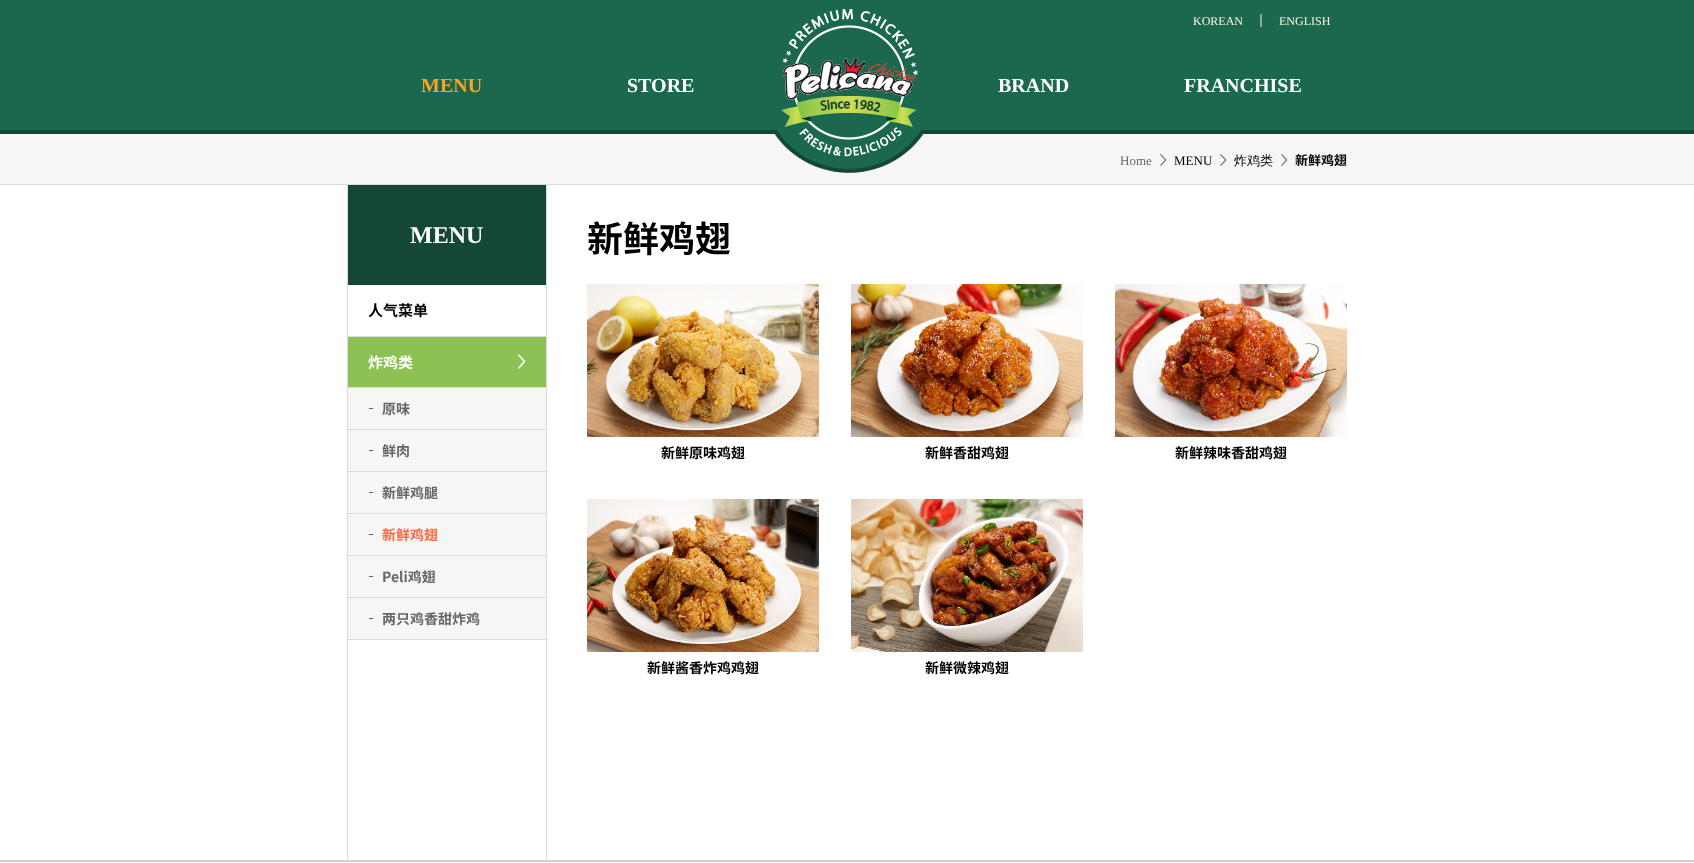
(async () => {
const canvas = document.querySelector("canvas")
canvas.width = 1694
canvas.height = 863
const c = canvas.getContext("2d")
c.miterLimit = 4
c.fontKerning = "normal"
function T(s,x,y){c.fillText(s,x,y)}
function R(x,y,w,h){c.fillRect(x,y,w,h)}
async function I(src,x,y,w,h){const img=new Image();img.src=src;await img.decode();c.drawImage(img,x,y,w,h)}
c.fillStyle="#fff"
R(0,0,1694,863)
await I("1.png",0,0,1694,134)
c.fillStyle="#f6f6f6"
R(0,134,1694,50)
await I("2.png",775,130,148,43)
await I("3.png",781,9,137,148)
c.font="12px Liberation Serif"
c.fillStyle="#fff6df"
T("KOREAN",1193,25)
c.fillStyle="#86aa9e"
R(1260,14,2,13)
c.fillStyle="#fff6df"
T("ENGLISH",1279,25)
c.font="bold 20px Liberation Serif"
c.fillStyle="#fea11e"
T("MENU",421,92)
c.fillStyle="#fff"
T("STORE",627,92)
T("BRAND",998,92)
T("FRANCHISE",1184,92)
c.fillStyle="#d0d0d1"
R(0,860,1694,2)
c.fillStyle="#dbdbdb"
R(0,184,1694,1)
c.font="13px Liberation Serif"
c.fillStyle="#666"
T("Home",1120,165)
await I("4.png",1160,154,7,12)
c.fillStyle="#000"
T("MENU",1174,165)
await I("4.png",1220,154,7,12)
c.font="500 13px WenQuanYi Zen Hei"
T("炸鸡类",1234,165)
await I("4.png",1281,154,7,12)
c.font="bold 13px Noto Sans SC"
T("新鲜鸡翅",1295,165)
c.fillStyle="#dbdbdb"
R(347,185,1,675)
c.fillStyle="#154736"
R(348,185,198,100)
c.font="bold 24px Liberation Serif"
c.fillStyle="#fff"
T("MENU",410,243)
c.fillStyle="#dbdbdb"
R(348,336,198,1)
c.font="bold 15px Noto Sans SC"
c.fillStyle="#000"
T("人气菜单",368,316)
c.fillStyle="#dbdbdb"
R(348,639,198,1)
c.fillStyle="#8dc153"
R(348,337,198,50)
await I("5.png",518,354,7,15)
c.fillStyle="#fff"
T("炸鸡类",368,368)
c.fillStyle="#dbdbdb"
R(348,387,198,1)
c.fillStyle="#f6f6f6"
R(348,388,198,41)
await I("6.png",368,408,6,1)
c.font="bold 14px Noto Sans SC"
c.fillStyle="#666"
T("原味",382,414)
c.fillStyle="#dbdbdb"
R(348,429,198,1)
c.fillStyle="#f6f6f6"
R(348,430,198,41)
await I("6.png",368,450,6,1)
c.fillStyle="#666"
T("鲜肉",382,456)
c.fillStyle="#dbdbdb"
R(348,471,198,1)
c.fillStyle="#f6f6f6"
R(348,472,198,41)
await I("6.png",368,492,6,1)
c.fillStyle="#666"
T("新鲜鸡腿",382,498)
c.fillStyle="#dbdbdb"
R(348,513,198,1)
c.fillStyle="#f6f6f6"
R(348,514,198,41)
await I("6.png",368,534,6,1)
c.fillStyle="#ff6740"
T("新鲜鸡翅",382,540)
c.fillStyle="#dbdbdb"
R(348,555,198,1)
c.fillStyle="#f6f6f6"
R(348,556,198,41)
await I("6.png",368,576,6,1)
c.fillStyle="#666"
T("Peli鸡翅",382,582)
c.fillStyle="#dbdbdb"
R(348,597,198,1)
c.fillStyle="#f6f6f6"
R(348,598,198,41)
await I("6.png",368,618,6,1)
c.fillStyle="#666"
T("两只鸡香甜炸鸡",382,624)
c.fillStyle="#dbdbdb"
R(546,185,1,675)
c.font="bold 36px Noto Sans SC"
c.fillStyle="#000"
T("新鲜鸡翅",587,252)
await I("7.png",587,284,232,153)
c.font="bold 14px Noto Sans SC"
T("新鲜原味鸡翅",661,458)
await I("8.png",851,284,232,153)
T("新鲜香甜鸡翅",925,458)
await I("9.png",1115,284,232,153)
T("新鲜辣味香甜鸡翅",1175,458)
await I("10.png",587,499,232,153)
T("新鲜酱香炸鸡鸡翅",647,673)
await I("11.png",851,499,232,153)
T("新鲜微辣鸡翅",925,673)
})()
